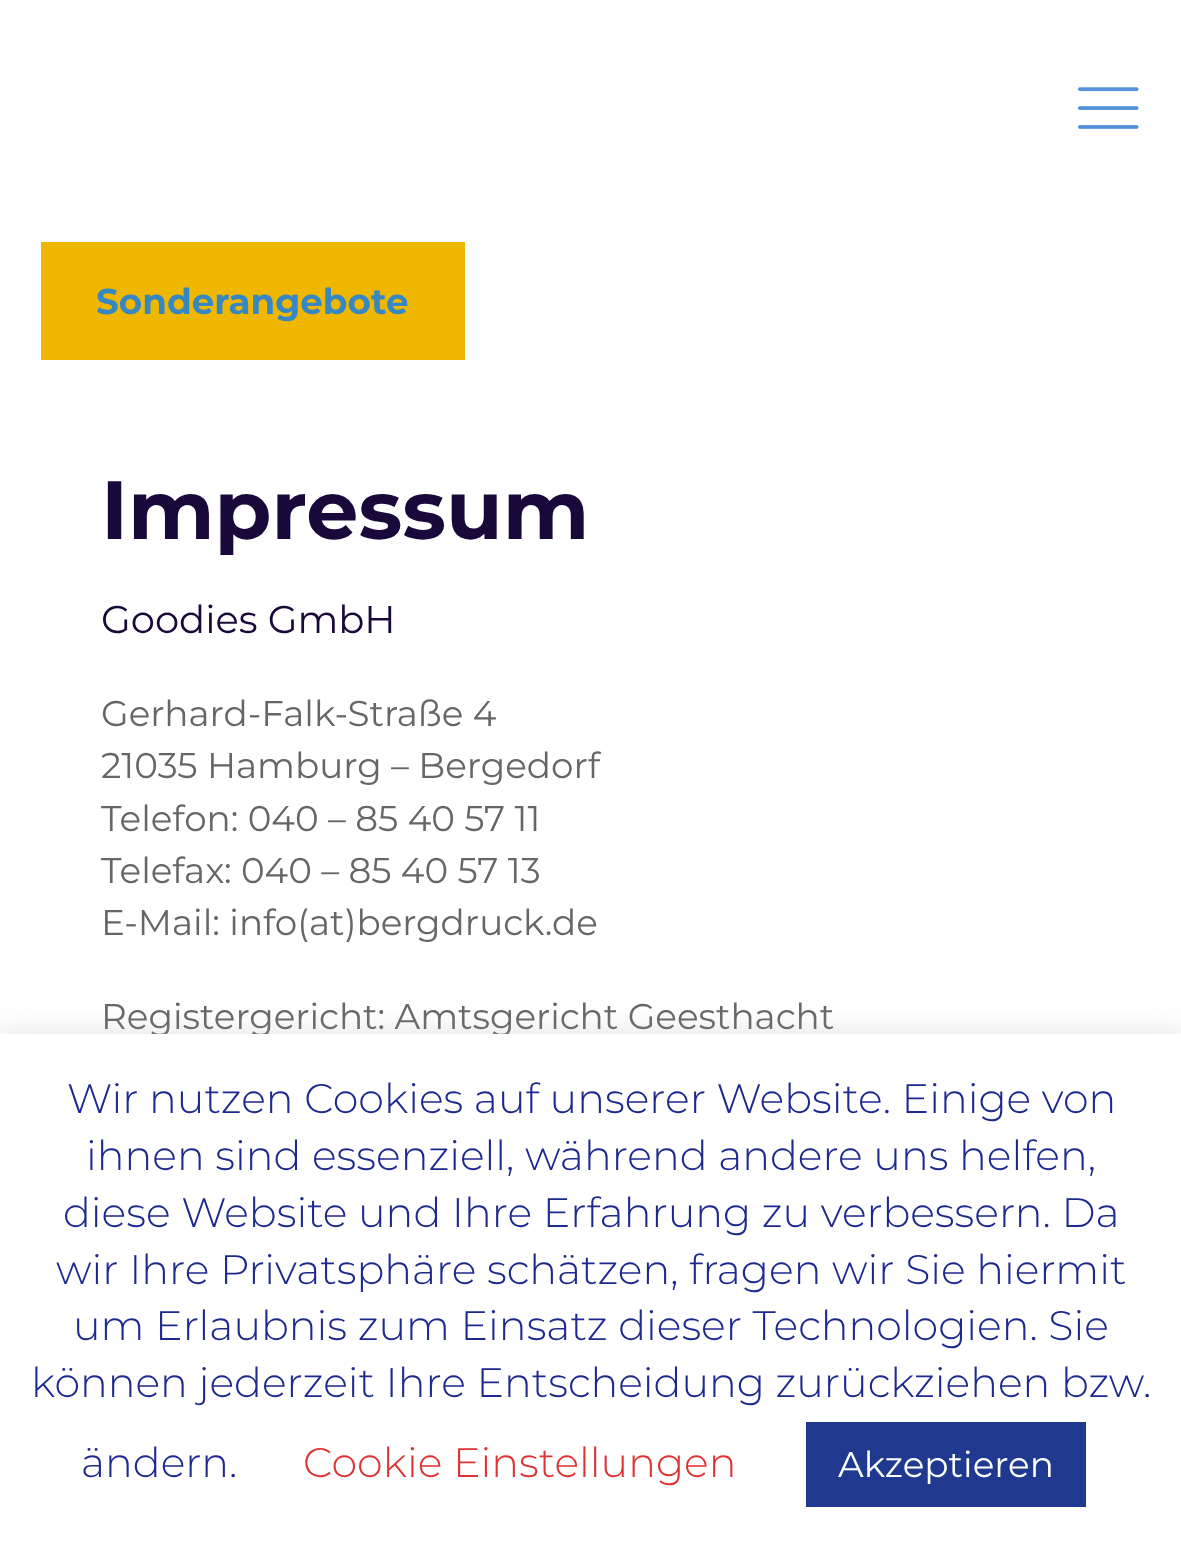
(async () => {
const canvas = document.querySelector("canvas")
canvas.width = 1181
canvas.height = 1552
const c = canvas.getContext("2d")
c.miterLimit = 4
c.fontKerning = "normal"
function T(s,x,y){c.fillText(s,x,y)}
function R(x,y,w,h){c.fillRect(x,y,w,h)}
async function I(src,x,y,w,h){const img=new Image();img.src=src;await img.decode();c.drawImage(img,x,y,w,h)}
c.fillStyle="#fff"
R(0,0,1181,1552)
await I("1.png",1078,87,61,42)
c.fillStyle="#efb700"
R(41,242,424,118)
c.font="100 35.75px Montserrat"
c.fillStyle="#3788c2"
T("Sonderangebote",96,314)
c.font="100 82.5px Montserrat"
c.fillStyle="#18093a"
T("Impressum",101,539)
c.font="100 38.5px 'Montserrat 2'"
T("Goodies GmbH",101,633)
c.font="100 35.75px 'Montserrat 2'"
c.fillStyle="#666"
T("Gerhard-Falk-Straße 4",101,726)
T("21035 Hamburg – Bergedorf",101,778)
T("Telefon: 040 – 85 40 57 11",101,831)
T("Telefax: 040 – 85 40 57 13",101,883)
T("E-Mail: info(at)bergdruck.de",101,935)
T("Registergericht: Amtsgericht Geesthacht",101,1029)
c.fillStyle="#acabab4d"
c.filter="blur(14px)"
c.beginPath()
c.rect(0,1031,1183,520)
c.fill()
c.filter="none"
c.fillStyle="#fff"
R(0,1034,1181,518)
c.font="100 41.25px 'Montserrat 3'"
c.fillStyle="#1e298f"
T("Wir nutzen Cookies auf unserer Website. Einige von",67,1113)
T("ihnen sind essenziell, während andere uns helfen,",86,1170)
T("diese Website und Ihre Erfahrung zu verbessern. Da",63,1227)
T("wir Ihre Privatsphäre schätzen, fragen wir Sie hiermit",56,1284)
T("um Erlaubnis zum Einsatz dieser Technologien. Sie",73,1340)
T("können jederzeit Ihre Entscheidung zurückziehen bzw.",31,1397)
T("ändern.",81,1477)
c.fillStyle="#d33"
T("Cookie Einstellungen",303,1477)
c.fillStyle="#1e398f"
R(806,1422,280,85)
c.font="100 35.75px 'Montserrat 2'"
c.fillStyle="#fff"
T("Akzeptieren",838,1477)
})()
